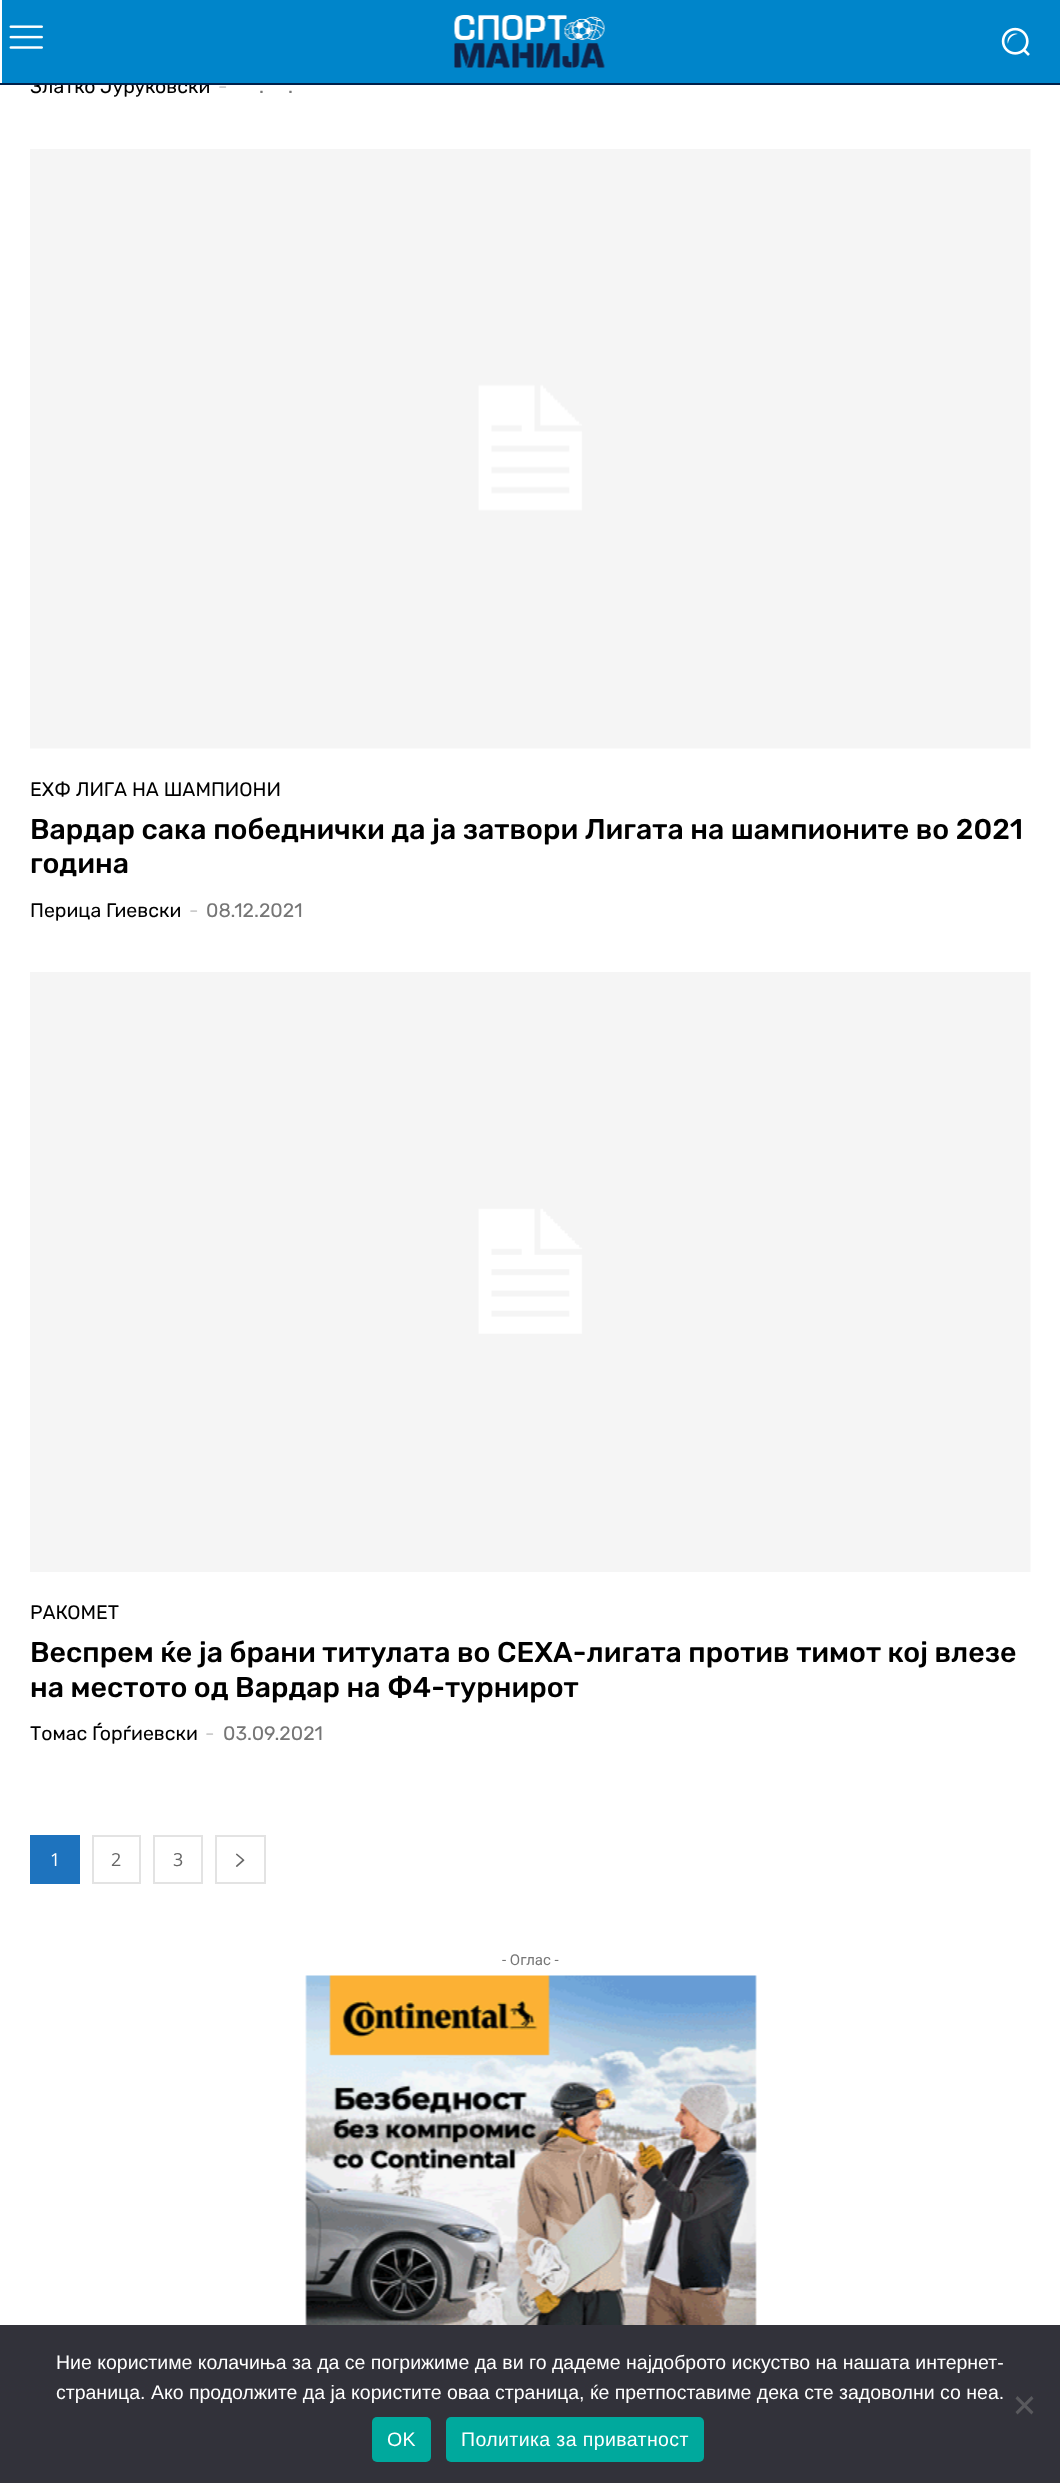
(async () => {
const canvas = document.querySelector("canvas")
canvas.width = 1060
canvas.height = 2483
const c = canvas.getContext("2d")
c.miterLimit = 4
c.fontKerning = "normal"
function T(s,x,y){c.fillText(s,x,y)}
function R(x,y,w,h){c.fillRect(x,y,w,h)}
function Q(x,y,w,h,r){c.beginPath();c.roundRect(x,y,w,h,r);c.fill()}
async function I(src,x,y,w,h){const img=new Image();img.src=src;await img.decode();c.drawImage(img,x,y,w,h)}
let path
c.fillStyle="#fff"
R(0,0,1060,2483)
c.font="19.5px Rubik"
c.fillStyle="#000"
T("Златко Јуруковски",30,93)
c.fillStyle="#0085ca"
R(2,0,1058,83)
await I("1.png",9,25,34,24)
await I("2.png",454,15,151,53)
await I("3.png",1001,27,29,29)
c.fillStyle="#00204a"
R(0,83,1060,2)
c.fillStyle="#ccc"
T("-",218,93)
c.fillStyle="#767676"
T(".",259,93)
T(".",288,93)
await I("4.png",30,149,1001,600)
c.fillStyle="#000"
T("ЕХФ ЛИГА НА ШАМПИОНИ",30,796)
c.font="500 28.5px Rubik"
T("Вардар сака победнички да ја затвори Лигата на шампионите во 2021",30,839)
T("година",30,873)
c.font="19.5px Rubik"
T("Перица Гиевски",30,917)
c.fillStyle="#ccc"
T("-",189,917)
c.fillStyle="#767676"
T("08.12.2021",206,917)
await I("5.png",30,972,1001,600)
c.fillStyle="#000"
T("РАКОМЕТ",30,1619)
c.font="500 28.5px Rubik"
T("Веспрем ќе ја брани титулата во СЕХА-лигата против тимот кој влезе",30,1662)
T("на местото од Вардар на Ф4-турнирот",30,1697)
c.font="19.5px Rubik"
T("Томас Ѓорѓиевски",30,1740)
c.fillStyle="#ccc"
T("-",205,1740)
c.fillStyle="#767676"
T("03.09.2021",223,1740)
c.fillStyle="#1e73be"
R(30,1835,50,49)
c.font="18px Open Sans"
c.fillStyle="#fff"
T("1",50,1866)
c.strokeStyle="#e3e3e3"
c.lineWidth=2
c.strokeRect(93,1836,47,47)
c.fillStyle="#666"
T("2",111,1866)
c.strokeRect(154,1836,48,47)
T("3",173,1866)
c.strokeRect(216,1836,49,47)
await I("6.png",235,1853,10,14)
c.font="15px Roboto"
c.fillStyle="#767676"
T("- Оглас -",502,1965)
await I("7.png",305,1975,452,350)
c.fillStyle="#32323a"
R(0,2325,1060,158)
c.font="19.5px Liberation Sans"
c.fillStyle="#fff"
T("Ние користиме колачиња за да се погрижиме да ви го дадеме најдоброто искуство на нашата интернет-",56,2369)
T("страница. Ако продолжите да ја користите оваа страница, ќе претпоставиме дека сте задоволни со неа.",56,2399)
c.fillStyle="#59595d"
path = new Path2D("M1031.5 2396l2 2.5l-16 16l-2-2.5z")
c.fill(path)
path = new Path2D("M1015.5 2398.5l2-2.5l16 16l-2 2.5z")
c.fill(path)
c.fillStyle="#00a99d"
Q(372,2417,59,45,5)
c.letterSpacing="0.4px"
c.fillStyle="#fff"
T("OK",387,2446)
c.fillStyle="#00a99d"
Q(446,2417,258,45,5)
c.fillStyle="#fff"
T("Политика за приватност",461,2446)
})()
